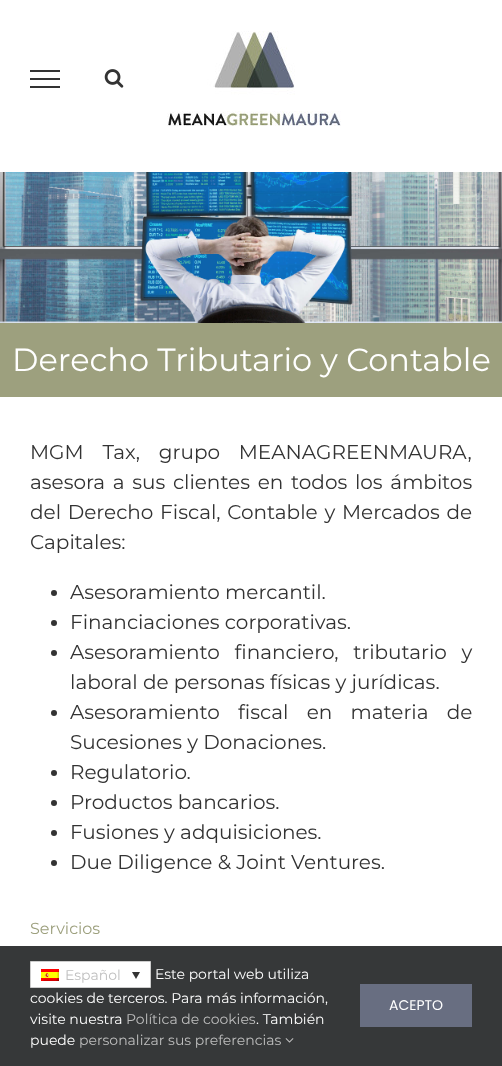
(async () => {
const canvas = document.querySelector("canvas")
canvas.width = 502
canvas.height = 1066
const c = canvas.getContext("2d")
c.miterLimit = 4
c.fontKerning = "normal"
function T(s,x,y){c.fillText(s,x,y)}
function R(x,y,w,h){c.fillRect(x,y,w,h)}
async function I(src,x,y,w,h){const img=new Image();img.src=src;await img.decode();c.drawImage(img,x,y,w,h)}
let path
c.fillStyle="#fff"
R(0,0,502,1066)
c.fillStyle="#333"
R(30,70,30,2)
R(30,78,30,2)
R(30,86,30,2)
await I("1.png",104,69,20,19)
await I("2.png",167,31,174,95)
await I("3.png",0,172,502,151)
c.fillStyle="#9da07e"
R(0,323,502,74)
c.font="32px Montserrat"
c.fillStyle="#fff"
T("Derecho Tributario y Contable",12,371)
c.wordSpacing="13.5px"
c.font="20px Montserrat"
c.fillStyle="#333"
T("MGM Tax, grupo MEANAGREENMAURA,",30,459)
c.wordSpacing="2.5px"
T("asesora a sus clientes en todos los ámbitos",30,489)
c.wordSpacing="1.5px"
T("del Derecho Fiscal, Contable y Mercados de",30,519)
c.wordSpacing="0px"
T("Capitales:",30,549)
c.beginPath()
c.arc(54,593,3,0,7)
c.fill()
T("Asesoramiento mercantil.",70,599)
c.beginPath()
c.arc(54,623,3,0,7)
c.fill()
T("Financiaciones corporativas.",70,629)
c.beginPath()
c.arc(54,653,3,0,7)
c.fill()
c.wordSpacing="9.5px"
T("Asesoramiento financiero, tributario y",70,659)
c.wordSpacing="0px"
T("laboral de personas físicas y jurídicas.",70,689)
c.beginPath()
c.arc(54,713,3,0,7)
c.fill()
c.wordSpacing="13px"
T("Asesoramiento fiscal en materia de",70,719)
c.wordSpacing="0px"
T("Sucesiones y Donaciones.",70,749)
c.beginPath()
c.arc(54,773,3,0,7)
c.fill()
T("Regulatorio.",70,779)
c.beginPath()
c.arc(54,803,3,0,7)
c.fill()
T("Productos bancarios.",70,809)
c.beginPath()
c.arc(54,833,3,0,7)
c.fill()
T("Fusiones y adquisiciones.",70,839)
c.beginPath()
c.arc(54,863,3,0,7)
c.fill()
T("Due Diligence & Joint Ventures.",70,869)
c.font="16px Montserrat"
c.fillStyle="#9da07e"
T("Servicios",30,934)
c.fillStyle="#363839"
R(0,946,502,120)
c.fillStyle="#fff"
c.beginPath()
c.rect(30.5,961.5,120,26)
c.fill()
c.strokeStyle="#cdcdcd"
c.stroke()
await I("4.png",41,969,18,12)
c.font="14px Montserrat"
c.fillStyle="#bfbfbf"
T("Español",65,980)
c.fillStyle="#333"
path = new Path2D("M132 972h8l-4 7z")
c.fill(path)
c.fillStyle="#fff"
T("Este portal web utiliza",155,979)
T("cookies de terceros. Para más información,",30,1003)
T("visite nuestra",30,1024)
c.fillStyle="#bfbfbf"
T("Política de cookies",126,1024)
c.fillStyle="#fff"
T(". También",256,1024)
T("puede",30,1045)
c.fillStyle="#bfbfbf"
T("personalizar sus preferencias",79,1045)
await I("5.png",285,1038,9,5)
c.fillStyle="#686e81"
R(360,984,112,43)
c.font="14px Poppins"
c.fillStyle="#fff"
T("ACEPTO",389,1010)
})()
